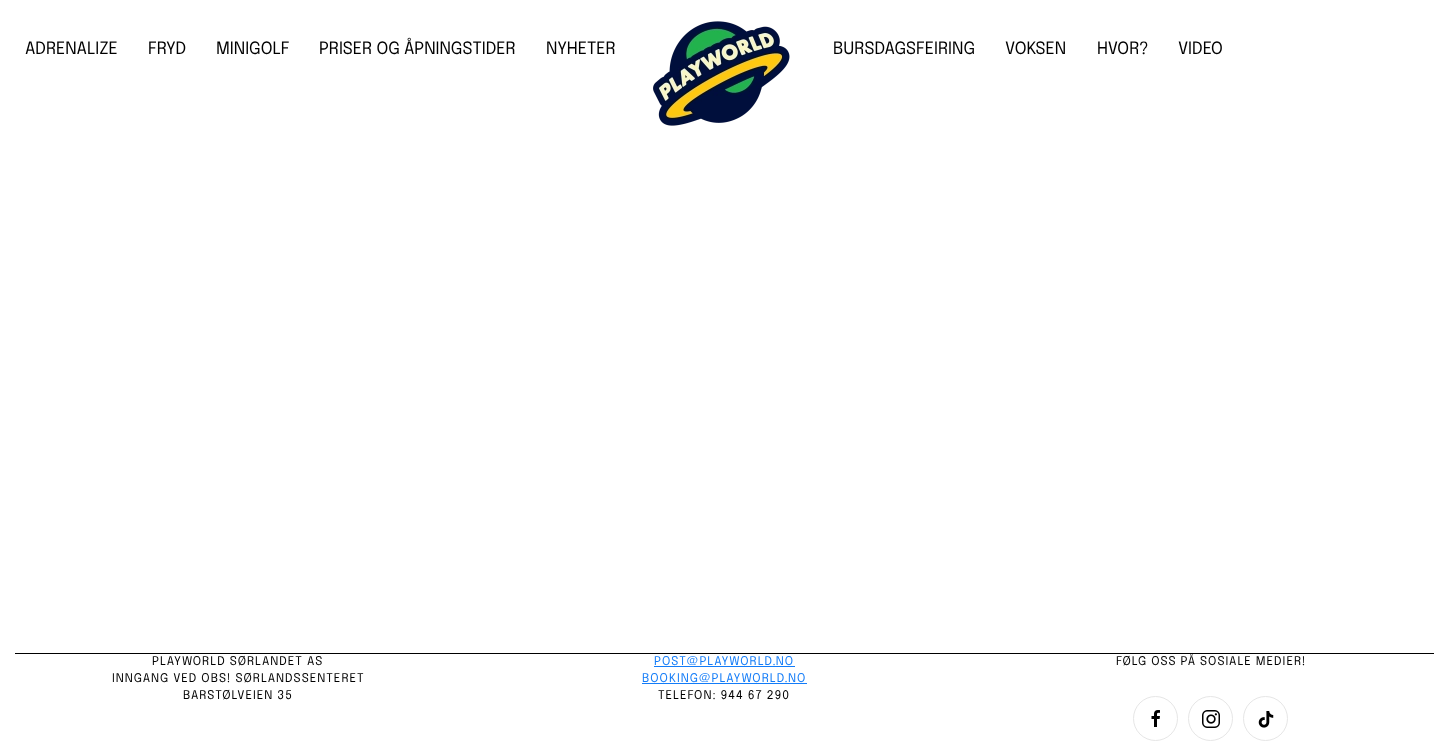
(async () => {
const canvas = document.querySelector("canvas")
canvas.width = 1449
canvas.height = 756
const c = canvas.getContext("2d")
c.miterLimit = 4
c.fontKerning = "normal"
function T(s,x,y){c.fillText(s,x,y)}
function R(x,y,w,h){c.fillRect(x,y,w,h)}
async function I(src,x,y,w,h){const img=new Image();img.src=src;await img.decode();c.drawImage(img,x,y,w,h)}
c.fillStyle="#fff"
R(0,0,1449,756)
c.font="17px Epilogue"
c.fillStyle="#000"
T("ADRENALIZE",25,54)
T("FRYD",148,54)
T("MINIGOLF",216,54)
T("PRISER OG ÅPNINGSTIDER",319,54)
T("NYHETER",546,54)
await I("1.png",653,21,137,105)
T("BURSDAGSFEIRING",833,54)
T("VOKSEN",1005,54)
T("HVOR?",1097,54)
T("VIDEO",1178,54)
R(15,653,1419,1)
c.letterSpacing="1px"
c.font="12px Epilogue"
T("PLAYWORLD SØRLANDET AS",152,665)
T("INNGANG VED OBS! SØRLANDSSENTERET",112,682)
T("BARSTØLVEIEN 35",183,699)
c.fillStyle="#137cf8"
T("POST@PLAYWORLD.NO",654,665)
R(654,666,141,1)
T("BOOKING@PLAYWORLD.NO",642,682)
R(642,683,165,1)
c.fillStyle="#000"
T("TELEFON: 944 67 290",658,699)
T("FØLG OSS PÅ SOSIALE MEDIER!",1116,665)
c.beginPath()
c.arc(1155.5,718.5,22,0,7)
c.strokeStyle="#e6e6e6"
c.stroke()
await I("2.png",1151,710,9,17)
c.beginPath()
c.arc(1210.5,718.5,22,0,7)
c.stroke()
await I("3.png",1202,710,18,18)
c.beginPath()
c.arc(1265.5,718.5,22,0,7)
c.stroke()
await I("4.png",1258,711,16,17)
})()
